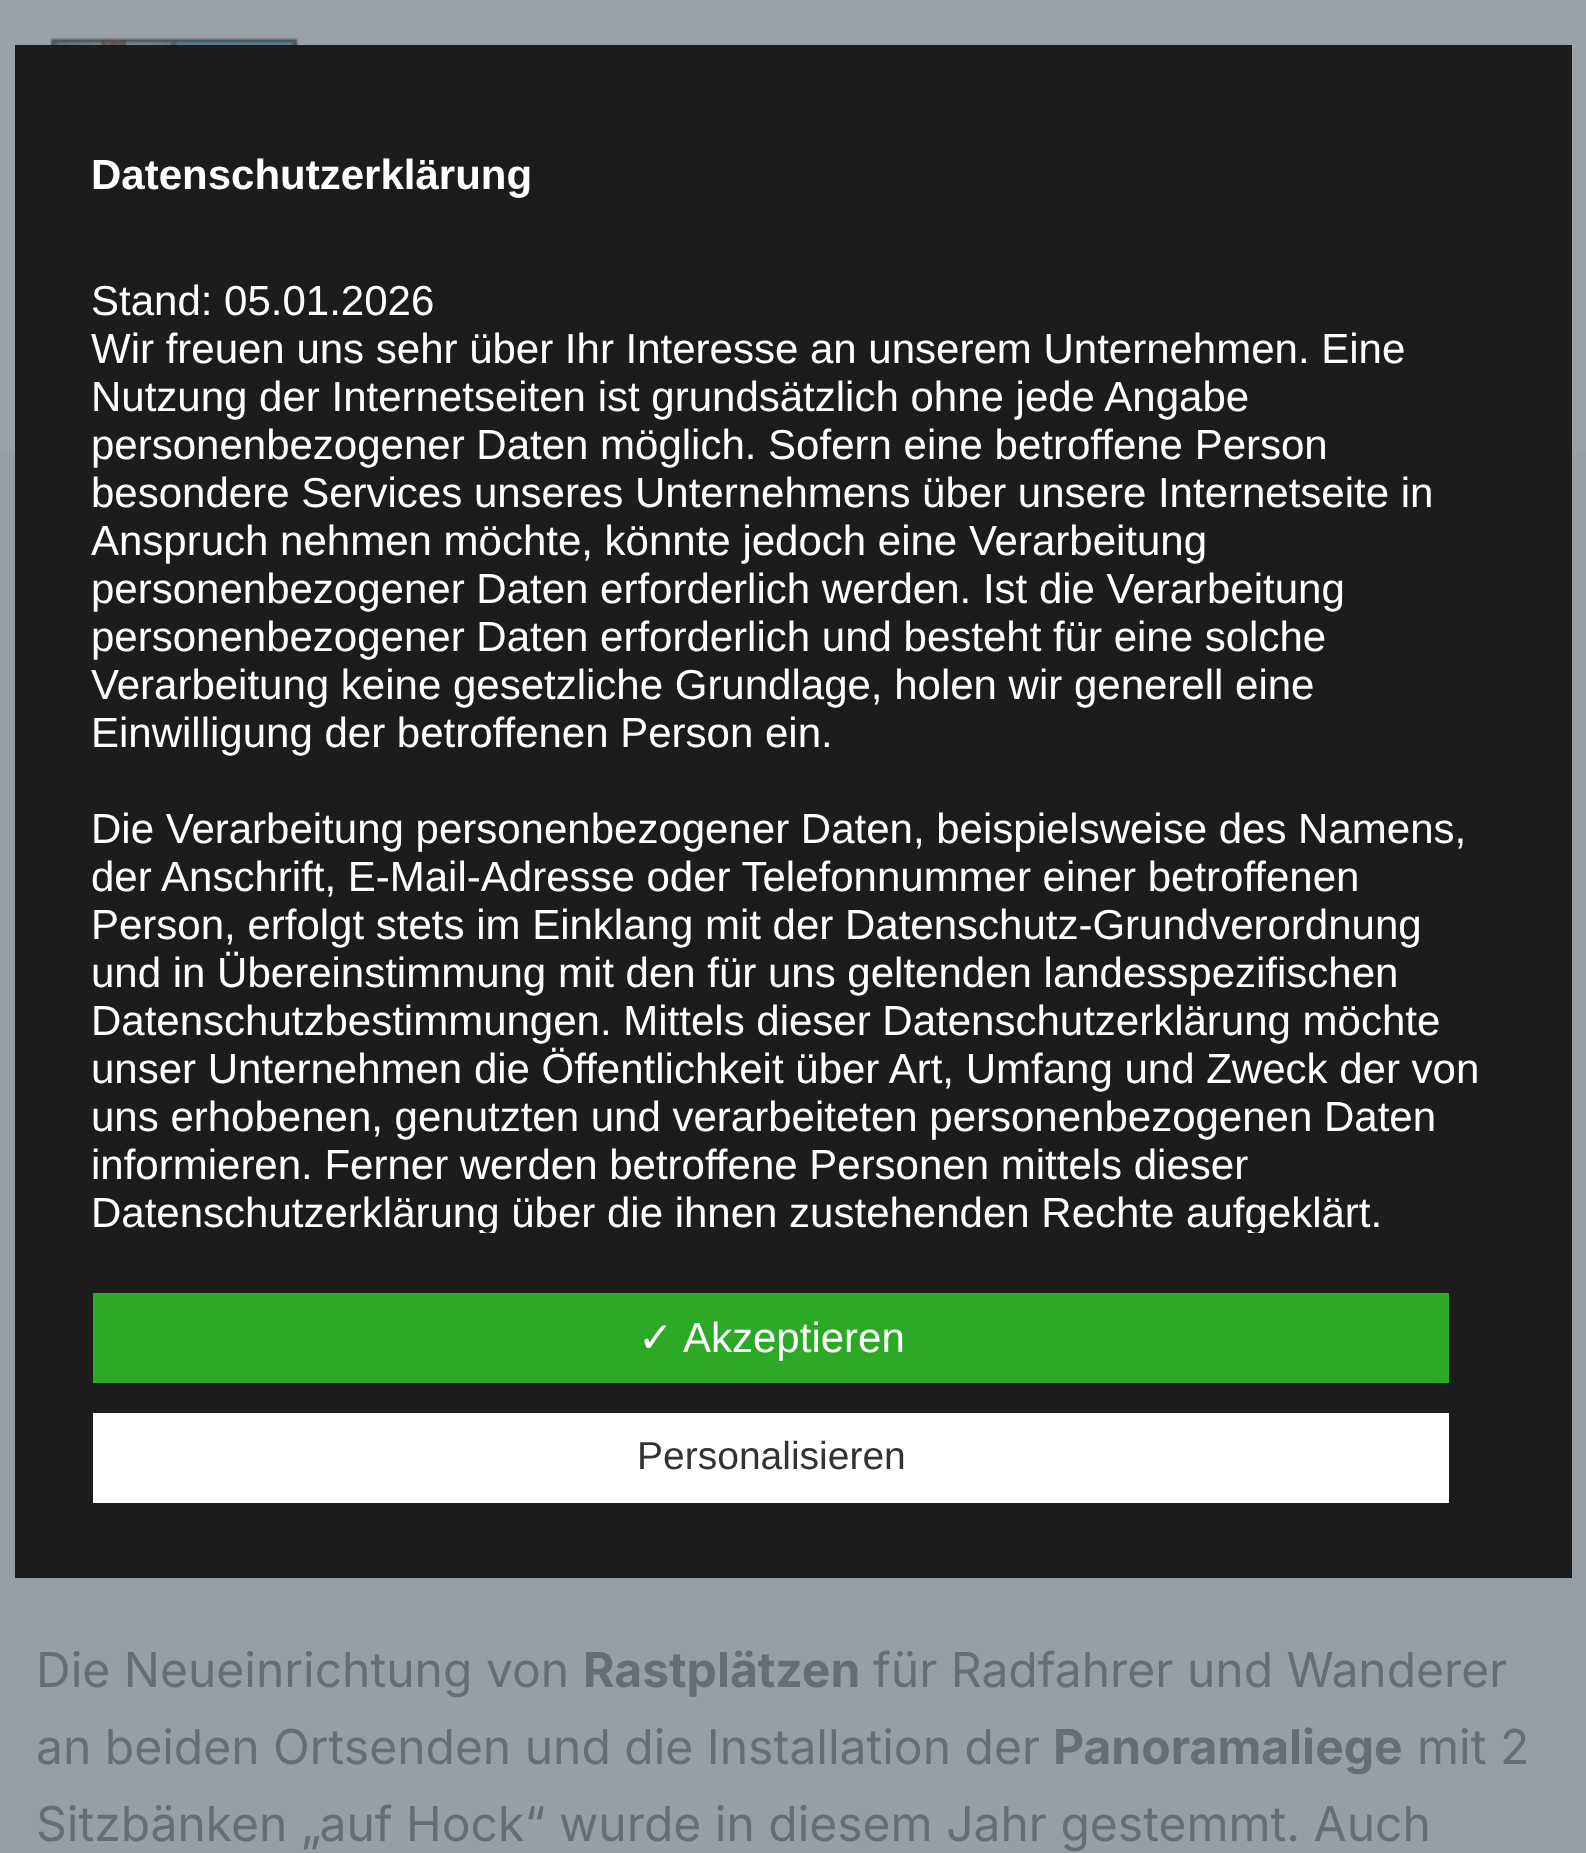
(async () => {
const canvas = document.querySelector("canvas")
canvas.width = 1586
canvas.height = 1853
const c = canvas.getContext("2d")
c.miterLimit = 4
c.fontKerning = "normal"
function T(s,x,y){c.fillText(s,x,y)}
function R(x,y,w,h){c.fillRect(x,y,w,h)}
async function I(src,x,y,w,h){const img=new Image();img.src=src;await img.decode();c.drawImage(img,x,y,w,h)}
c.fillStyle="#989fa4"
R(0,0,1586,1853)
c.fillStyle="#9ba2a7"
R(0,0,1586,453)
c.fillStyle="#1d1c1c"
R(15,45,1557,1533)
c.font="bold 42px Liberation Sans"
c.fillStyle="#fff"
T("Datenschutzerklärung",91,189)
c.font="42px Liberation Sans"
T("Stand: 05.01.2026",91,315)
T("Wir freuen uns sehr über Ihr Interesse an unserem Unternehmen. Eine",91,363)
T("Nutzung der Internetseiten ist grundsätzlich ohne jede Angabe",91,411)
T("personenbezogener Daten möglich. Sofern eine betroffene Person",91,459)
T("besondere Services unseres Unternehmens über unsere Internetseite in",91,507)
T("Anspruch nehmen möchte, könnte jedoch eine Verarbeitung",91,555)
T("personenbezogener Daten erforderlich werden. Ist die Verarbeitung",91,603)
T("personenbezogener Daten erforderlich und besteht für eine solche",91,651)
T("Verarbeitung keine gesetzliche Grundlage, holen wir generell eine",91,699)
T("Einwilligung der betroffenen Person ein.",91,747)
T("Die Verarbeitung personenbezogener Daten, beispielsweise des Namens,",91,843)
T("der Anschrift, E-Mail-Adresse oder Telefonnummer einer betroffenen",91,891)
T("Person, erfolgt stets im Einklang mit der Datenschutz-Grundverordnung",91,939)
T("und in Übereinstimmung mit den für uns geltenden landesspezifischen",91,987)
T("Datenschutzbestimmungen. Mittels dieser Datenschutzerklärung möchte",91,1035)
T("unser Unternehmen die Öffentlichkeit über Art, Umfang und Zweck der von",91,1083)
T("uns erhobenen, genutzten und verarbeiteten personenbezogenen Daten",91,1131)
T("informieren. Ferner werden betroffene Personen mittels dieser",91,1179)
c.save()
c.beginPath()
c.rect(90,120,1482,1113)
c.clip()
T("Datenschutzerklärung über die ihnen zustehenden Rechte aufgeklärt.",91,1227)
c.restore()
c.fillStyle="#2caa27"
R(93,1293,1356,90)
c.font="42px DejaVu Sans"
c.fillStyle="#fff"
T("✓",638,1352)
c.font="42px Liberation Sans"
T("Akzeptieren",683,1352)
R(93,1413,1356,90)
c.font="39px Liberation Sans"
c.fillStyle="#333"
T("Personalisieren",637,1469)
await I("1.png",50,35,251,10)
c.font="48px Inter"
c.fillStyle="#666e74"
T("Die Neueinrichtung von",36,1687)
c.font="bold 48px Inter"
T("Rastplätzen",583,1687)
c.font="48px Inter"
T("für Radfahrer und Wanderer",873,1687)
T("an beiden Ortsenden und die Installation der",36,1764)
c.font="bold 48px Inter"
T("Panoramaliege",1053,1764)
c.font="48px Inter"
T("mit 2",1417,1764)
T("Sitzbänken „auf Hock“ wurde in diesem Jahr gestemmt. Auch",36,1841)
})()
